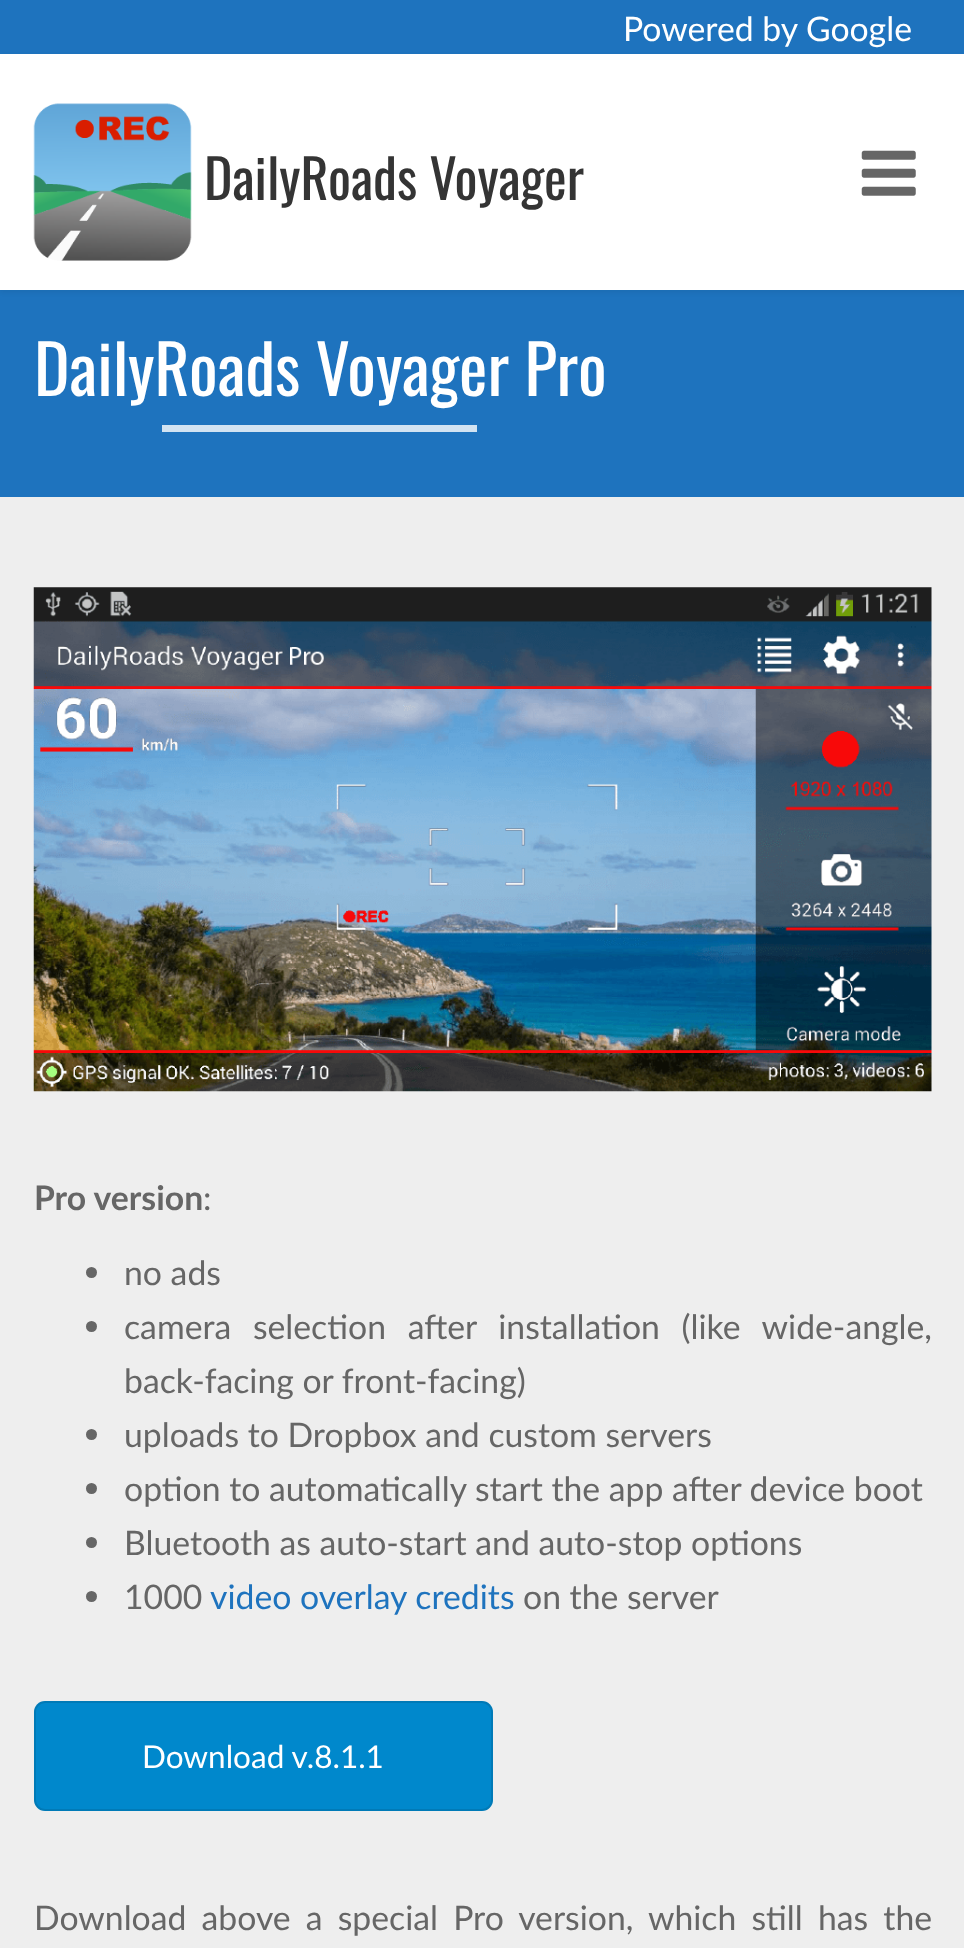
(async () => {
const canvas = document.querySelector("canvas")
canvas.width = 964
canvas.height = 1948
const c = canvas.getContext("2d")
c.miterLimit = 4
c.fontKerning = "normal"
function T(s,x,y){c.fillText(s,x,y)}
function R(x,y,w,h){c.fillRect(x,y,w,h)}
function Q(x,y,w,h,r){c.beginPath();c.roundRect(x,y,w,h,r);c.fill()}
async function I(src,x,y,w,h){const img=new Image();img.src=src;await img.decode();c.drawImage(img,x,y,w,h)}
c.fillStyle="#eee"
R(0,0,964,1948)
c.fillStyle="#1e73be"
R(0,0,964,54)
c.font="33.75px Lato"
c.fillStyle="#fff"
T("Powered by Google",623,41)
c.fillStyle="#1e73be"
R(0,290,964,207)
c.fillStyle="#0000000d"
c.filter="blur(2px)"
c.beginPath()
c.rect(0,56,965,237)
c.fill()
c.filter="none"
c.fillStyle="#fff"
R(0,54,964,236)
await I("1.png",33,103,159,158)
c.font="54px Oswald"
c.fillStyle="#343434"
T("DailyRoads Voyager",204,200)
await I("2.png",861,150,55,46)
c.font="67.5px Oswald"
c.fillStyle="#fff"
T("DailyRoads Voyager Pro",34,396)
c.fillStyle="#d2e3f2"
R(162,425,315,7)
await I("3.png",33,587,899,505)
c.font="bold 33.75px Lato"
c.fillStyle="#666"
T("Pro version",34,1210)
c.font="33.75px Lato"
T(":",203,1210)
c.beginPath()
c.arc(91.5,1272.5,5.5,0,7)
c.fill()
T("no ads",124,1285)
c.beginPath()
c.arc(91.5,1326.5,5.5,0,7)
c.fill()
c.wordSpacing="13px"
T("camera selection after installation (like wide-angle,",124,1339)
c.wordSpacing="0px"
T("back-facing or front-facing)",124,1393)
c.beginPath()
c.arc(91.5,1434.5,5.5,0,7)
c.fill()
T("uploads to Dropbox and custom servers",124,1447)
c.beginPath()
c.arc(91.5,1488.5,5.5,0,7)
c.fill()
T("option to automatically start the app after device boot",124,1501)
c.beginPath()
c.arc(91.5,1542.5,5.5,0,7)
c.fill()
T("Bluetooth as auto-start and auto-stop options",124,1555)
c.beginPath()
c.arc(91.5,1596.5,5.5,0,7)
c.fill()
T("1000",124,1609)
c.fillStyle="#1e73be"
T("video overlay credits",210,1609)
c.fillStyle="#666"
T("on the server",523,1609)
c.fillStyle="#08c"
Q(34,1701,459,110,11)
c.beginPath()
c.roundRect(35,1702,457,108,10)
c.strokeStyle="#0000001a"
c.lineWidth=2
c.stroke()
c.font="31.5px Lato"
c.fillStyle="#fff"
T("Download v.8.1.1",142,1768)
c.wordSpacing="6.5px"
c.font="33.75px Lato"
c.fillStyle="#666"
T("Download above a special Pro version, which still has the",34,1930)
})()
